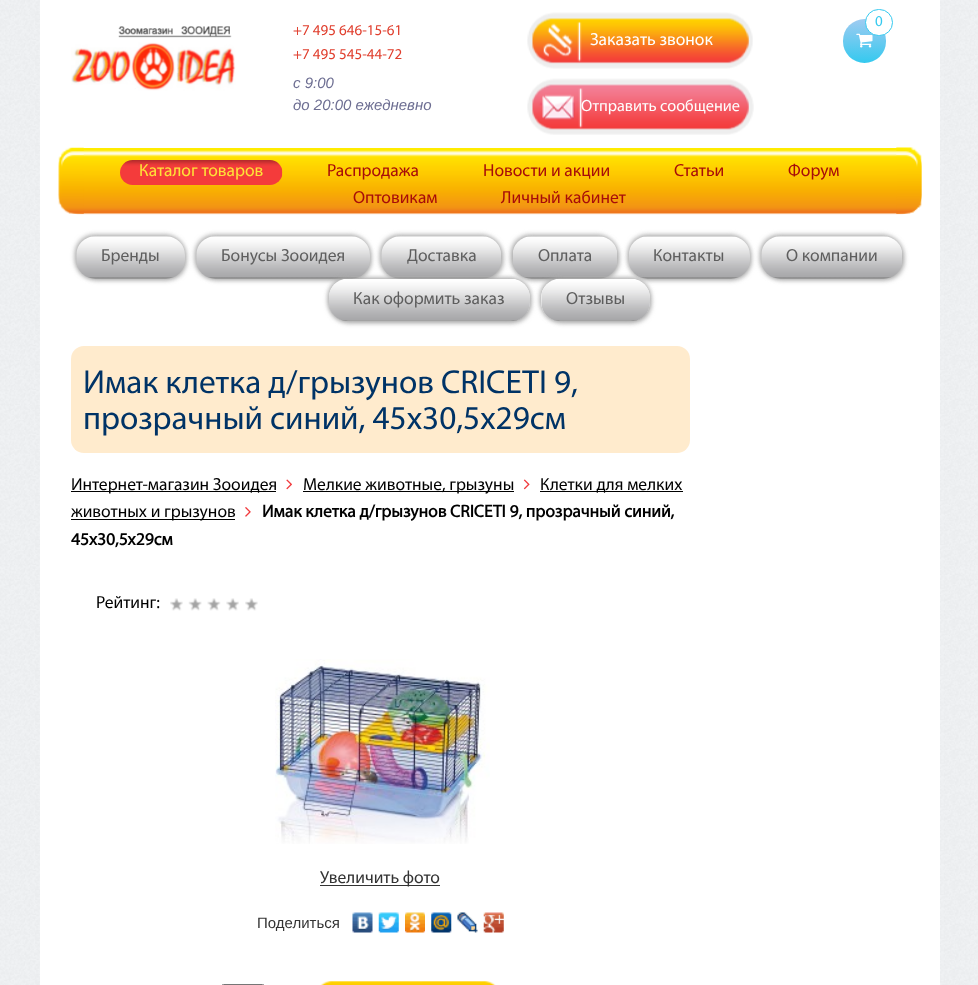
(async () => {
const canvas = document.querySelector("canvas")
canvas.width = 978
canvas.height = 985
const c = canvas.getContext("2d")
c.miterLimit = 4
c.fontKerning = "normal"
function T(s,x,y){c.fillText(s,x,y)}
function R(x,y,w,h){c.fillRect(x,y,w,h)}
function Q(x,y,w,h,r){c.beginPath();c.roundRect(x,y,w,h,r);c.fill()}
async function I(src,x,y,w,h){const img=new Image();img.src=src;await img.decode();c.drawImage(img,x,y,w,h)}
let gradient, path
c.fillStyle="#fff"
R(0,0,978,985)
await I("1.png",0,0,978,985)
R(40,0,900,985)
gradient = c.createLinearGradient(864,19,864,63)
gradient.addColorStop(0,"#a0cbf1")
gradient.addColorStop(1,"#34c9ef")
c.fillStyle = gradient
Q(843,19,43,44,21.5)
await I("2.png",856,33,17,15)
c.fillStyle="#fff"
c.beginPath()
c.roundRect(865.5,9.5,27,26,13)
c.fill()
c.strokeStyle="#34c9ef"
c.stroke()
c.font="15px Myriad"
c.fillStyle="#34c9ef"
T("0",875,26)
await I("3.png",71,26,165,65)
c.fillStyle="#e03e2d"
T("+7 495 646-15-61",293,35)
T("+7 495 545-44-72",293,59)
c.font="italic 15px Liberation Sans"
c.fillStyle="#6d6e92"
T("c 9:00",293,88)
T("до 20:00 ежедневно",293,110)
await I("4.png",527,12,226,57)
c.font="17.5px Myriad"
c.fillStyle="#fefefe"
T("Заказать звонок",590,45)
await I("5.png",527,78,227,57)
c.font="16.25px Myriad"
T("Отправить сообщение",581,111)
await I("6.png",58,148,864,67)
await I("7.png",58,147,26,67)
await I("8.png",120,160,163,25)
c.font="17.5px Myriad"
c.fillStyle="#fee238"
T("Каталог товаров",139,176)
c.fillStyle="#a70c0a"
T("Распродажа",327,176)
T("Новости и акции",483,176)
T("Статьи",674,176)
T("Форум",788,176)
T("Оптовикам",353,203)
T("Личный кабинет",501,203)
await I("9.png",896,147,26,67)
c.fillStyle="#aaa"
c.filter="blur(2.5px)"
c.beginPath()
c.roundRect(75,235,109,43,19)
c.fill()
c.filter="none"
c.filter="blur(2.5px)"
c.beginPath()
c.roundRect(78,238,108,42,19)
c.fill()
c.filter="none"
await I("10.png",76,236,109,43)
c.fillStyle="#5e5e5e"
T("Бренды",101,261)
c.fillStyle="#aaa"
c.filter="blur(2.5px)"
c.beginPath()
c.roundRect(195,235,174,43,19)
c.fill()
c.filter="none"
c.filter="blur(2.5px)"
c.beginPath()
c.roundRect(198,238,173,42,19)
c.fill()
c.filter="none"
await I("11.png",196,236,174,43)
c.fillStyle="#5e5e5e"
T("Бонусы Зооидея",221,261)
c.fillStyle="#aaa"
c.filter="blur(2.5px)"
c.beginPath()
c.roundRect(380,235,120,43,19)
c.fill()
c.filter="none"
c.filter="blur(2.5px)"
c.beginPath()
c.roundRect(383,238,120,42,19)
c.fill()
c.filter="none"
await I("12.png",381,236,120,43)
c.fillStyle="#5e5e5e"
T("Доставка",407,261)
c.fillStyle="#aaa"
c.filter="blur(2.5px)"
c.beginPath()
c.roundRect(511,235,105,43,19)
c.fill()
c.filter="none"
c.filter="blur(2.5px)"
c.beginPath()
c.roundRect(514,238,105,42,19)
c.fill()
c.filter="none"
await I("13.png",513,236,104,43)
c.fillStyle="#5e5e5e"
T("Оплата",538,261)
c.fillStyle="#aaa"
c.filter="blur(2.5px)"
c.beginPath()
c.roundRect(628,235,121,43,19)
c.fill()
c.filter="none"
c.filter="blur(2.5px)"
c.beginPath()
c.roundRect(630,238,121,42,19)
c.fill()
c.filter="none"
await I("14.png",629,236,121,43)
c.fillStyle="#5e5e5e"
T("Контакты",653,261)
c.fillStyle="#aaa"
c.filter="blur(2.5px)"
c.beginPath()
c.roundRect(760,235,141,43,19)
c.fill()
c.filter="none"
c.filter="blur(2.5px)"
c.beginPath()
c.roundRect(763,238,141,42,19)
c.fill()
c.filter="none"
await I("15.png",761,236,141,43)
c.fillStyle="#5e5e5e"
T("О компании",786,261)
c.save()
path = new Path2D("M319 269h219v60h-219zm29 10h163c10.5 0 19 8.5 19 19v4c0 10.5-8.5 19-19 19h-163c-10.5 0-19-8.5-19-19v-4c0-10.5 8.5-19 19-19z")
c.clip(path,"evenodd")
c.fillStyle="#aaa"
c.filter="blur(2.5px)"
c.beginPath()
c.roundRect(328,278,201,42,19)
c.fill()
c.filter="none"
c.restore()
c.save()
path = new Path2D("M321 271h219v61h-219zm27 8h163c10.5 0 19 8.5 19 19v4c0 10.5-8.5 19-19 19h-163c-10.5 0-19-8.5-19-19v-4c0-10.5 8.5-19 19-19z")
c.clip(path,"evenodd")
c.fillStyle="#aaa"
c.filter="blur(2.5px)"
c.beginPath()
c.roundRect(330,280,201,43,19)
c.fill()
c.filter="none"
c.restore()
await I("16.png",329,279,201,42)
T("Как оформить заказ",353,304)
c.save()
path = new Path2D("M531 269h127v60h-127zm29 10h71c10.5 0 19 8.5 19 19v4c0 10.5-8.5 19-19 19h-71c-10.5 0-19-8.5-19-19v-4c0-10.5 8.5-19 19-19z")
c.clip(path,"evenodd")
c.fillStyle="#aaa"
c.filter="blur(2.5px)"
c.beginPath()
c.roundRect(540,278,109,42,19)
c.fill()
c.filter="none"
c.restore()
c.save()
path = new Path2D("M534 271h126v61h-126zm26 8h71c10.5 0 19 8.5 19 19v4c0 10.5-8.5 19-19 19h-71c-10.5 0-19-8.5-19-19v-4c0-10.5 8.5-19 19-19z")
c.clip(path,"evenodd")
c.fillStyle="#aaa"
c.filter="blur(2.5px)"
c.beginPath()
c.roundRect(543,280,108,43,19)
c.fill()
c.filter="none"
c.restore()
await I("17.png",541,278,109,43)
T("Отзывы",566,304)
c.fillStyle="#ffebcd"
Q(71,346,619,107,13)
c.font="33.3px Myriad"
c.fillStyle="#036"
T("Имак клетка д/грызунов CRICETI 9,",83,393)
T("прозрачный синий, 45х30,5х29см",83,429)
c.fillStyle="#000"
R(71,491,205,1)
c.font="17.5px Myriad"
T("Интернет-магазин Зооидея",71,490)
await I("18.png",286,479,6,11)
R(303,491,211,1)
T("Мелкие животные, грызуны",303,490)
await I("19.png",523,479,7,11)
R(540,491,143,1)
T("Клетки для мелких",540,490)
R(71,519,164,1)
T("животных и грызунов",71,517)
await I("20.png",245,507,6,10)
c.font="bold 17.5px Myriad"
T("Имак клетка д/грызунов CRICETI 9, прозрачный синий,",262,517)
T("45х30,5х29см",71,545)
c.font="17.5px Myriad"
T("Рейтинг:",96,608)
await I("21.png",170,598,13,13)
await I("22.png",188,598,14,13)
await I("23.png",207,598,14,13)
await I("24.png",226,598,13,13)
await I("25.png",245,598,13,13)
await I("26.png",275,659,215,185)
c.fillStyle="#333"
R(320,885,120,1)
T("Увеличить фото",320,883)
c.font="15px Liberation Sans"
T("Поделиться",257,928)
await I("27.png",352,912,21,21)
await I("28.png",378,912,21,21)
await I("29.png",405,912,20,21)
await I("30.png",431,912,21,21)
await I("31.png",457,912,21,21)
await I("32.png",483,912,21,21)
await I("33.png",320,981,176,4)
c.beginPath()
c.roundRect(221.5,984.5,43,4,2)
c.strokeStyle="#767676"
c.stroke()
})()
